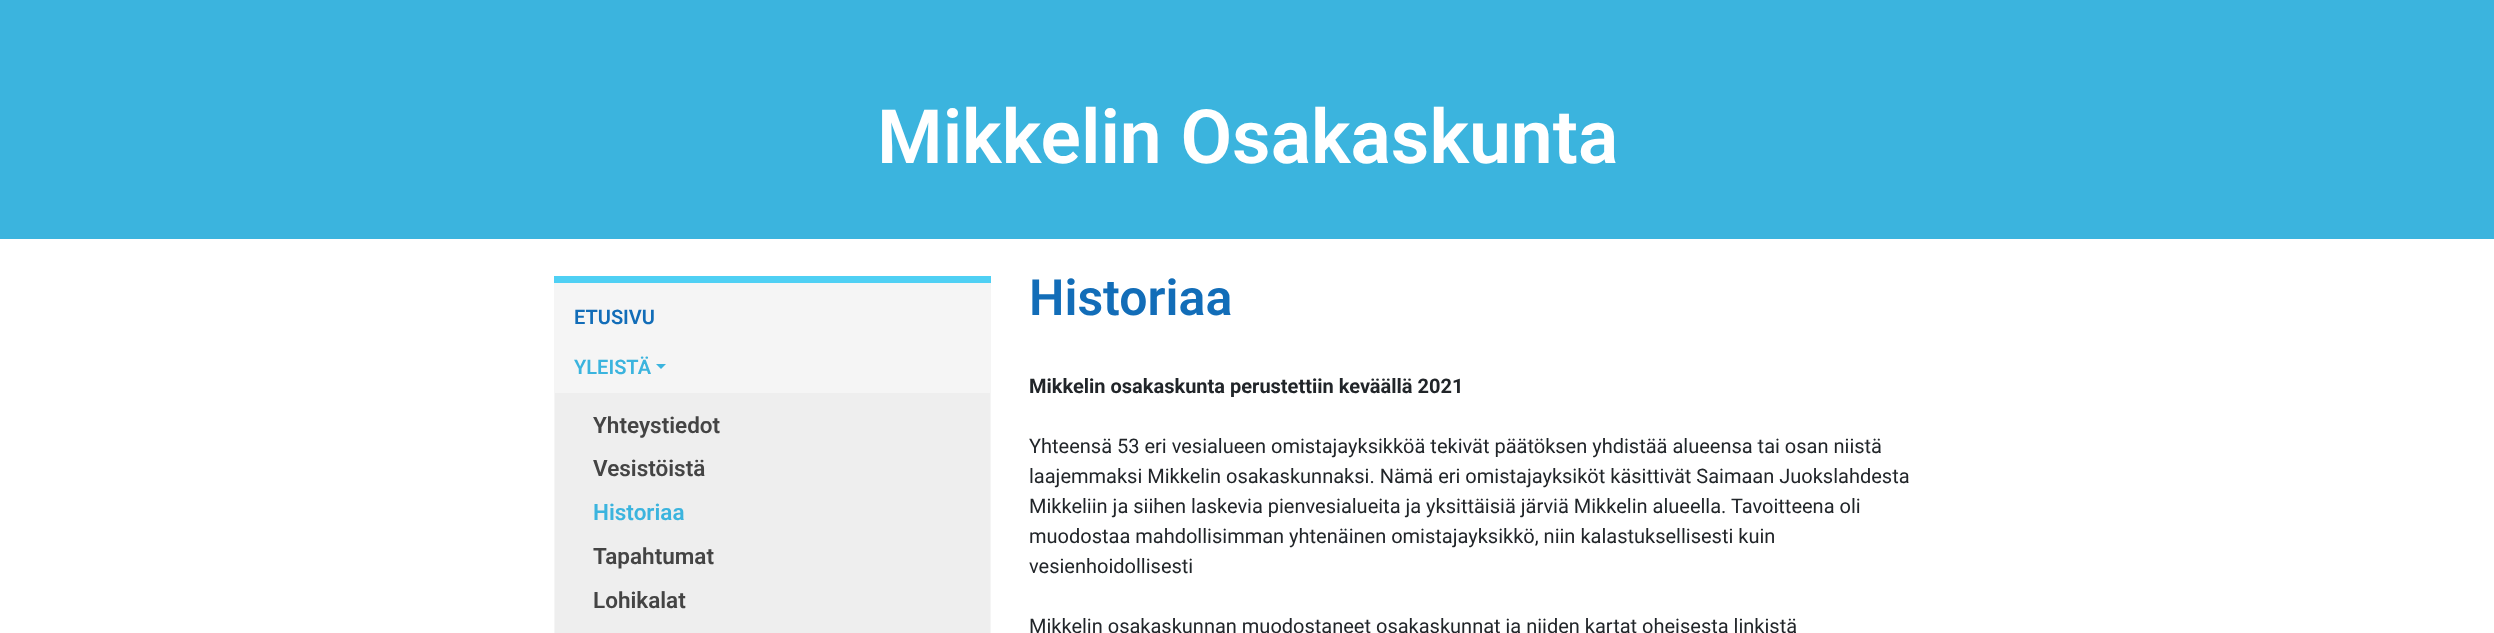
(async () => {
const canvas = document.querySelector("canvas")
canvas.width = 2494
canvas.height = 633
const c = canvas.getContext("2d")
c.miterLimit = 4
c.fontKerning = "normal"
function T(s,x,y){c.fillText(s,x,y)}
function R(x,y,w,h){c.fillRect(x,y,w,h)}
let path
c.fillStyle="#fff"
R(0,0,2494,633)
c.fillStyle="#3bb4de"
R(0,0,2494,239)
c.font="600 75px Roboto"
c.fillStyle="#fff"
T("Mikkelin Osakaskunta",877,163)
c.fillStyle="#f5f5f5"
R(554,283,437,350)
c.fillStyle="#4fd0f4"
R(554,276,437,7)
c.font="600 20px Roboto"
c.fillStyle="#126db8"
T("ETUSIVU",574,324)
c.fillStyle="#3bb4de"
T("YLEISTÄ",574,374)
path = new Path2D("M656 364h10l-5 5z")
c.fill(path)
c.fillStyle="#eee"
R(555,393,435,240)
c.font="600 22.5px Roboto"
c.fillStyle="#444"
T("Yhteystiedot",593,433)
T("Vesistöistä",593,476)
c.fillStyle="#3bb4de"
T("Historiaa",593,520)
c.fillStyle="#444"
T("Tapahtumat",593,564)
T("Lohikalat",593,608)
c.font="600 50px Roboto"
c.fillStyle="#126db8"
T("Historiaa",1029,315)
c.font="bold 20px Roboto"
c.fillStyle="#212529"
T("Mikkelin osakaskunta perustettiin keväällä 2021",1029,393)
c.font="20px Roboto"
T("Yhteensä 53 eri vesialueen omistajayksikköä tekivät päätöksen yhdistää alueensa tai osan niistä",1029,453)
T("laajemmaksi Mikkelin osakaskunnaksi. Nämä eri omistajayksiköt käsittivät Saimaan Juokslahdesta",1029,483)
T("Mikkeliin ja siihen laskevia pienvesialueita ja yksittäisiä järviä Mikkelin alueella. Tavoitteena oli",1029,513)
T("muodostaa mahdollisimman yhtenäinen omistajayksikkö, niin kalastuksellisesti kuin",1029,543)
T("vesienhoidollisesti",1029,573)
T("Mikkelin osakaskunnan muodostaneet osakaskunnat ja niiden kartat oheisesta linkistä",1029,633)
})()
